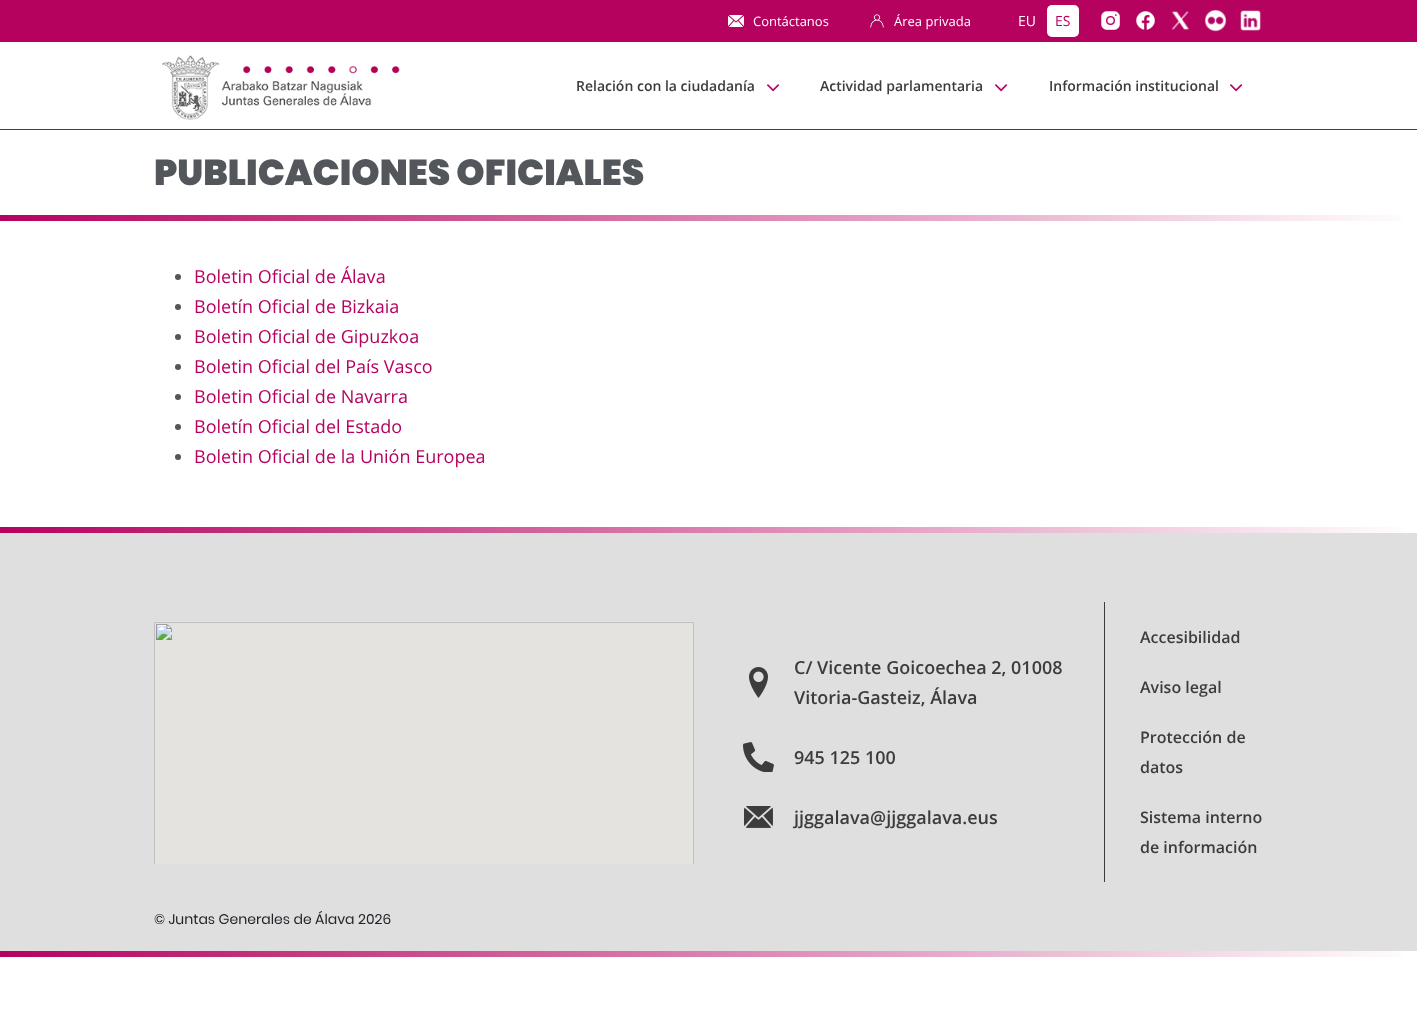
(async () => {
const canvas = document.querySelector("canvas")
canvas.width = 1417
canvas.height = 1013
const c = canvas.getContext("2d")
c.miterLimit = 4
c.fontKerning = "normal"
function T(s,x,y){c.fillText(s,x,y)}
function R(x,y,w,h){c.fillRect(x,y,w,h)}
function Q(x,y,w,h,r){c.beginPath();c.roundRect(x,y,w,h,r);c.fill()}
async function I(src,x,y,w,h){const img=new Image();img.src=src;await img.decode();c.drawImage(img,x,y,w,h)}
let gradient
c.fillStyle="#fff"
R(0,0,1417,1013)
c.fillStyle="#b6025f"
R(0,0,1417,42)
await I("1.png",728,15,16,12)
c.font="13px Open Sans"
c.fillStyle="#fff"
T("Contáctanos",753,26)
await I("2.png",869,13,16,16)
T("Área privada",894,26)
c.font="14px Open Sans"
T("EU",1018,26)
Q(1047,5,32,32,5)
c.fillStyle="#b6025f"
T("ES",1055,26)
await I("3.png",1101,11,19,19)
await I("4.png",1136,11,19,19)
await I("5.png",1171,11,19,19)
await I("6.png",1204,9,23,23)
await I("7.png",1240,10,21,21)
await I("8.png",162,55,238,65)
c.font="600 14px Open Sans"
c.fillStyle="#3c3c3a"
T("Relación con la ciudadanía",576,91)
await I("9.png",767,84,13,8)
T("Actividad parlamentaria",820,91)
await I("9.png",995,84,13,8)
T("Información institucional",1049,91)
await I("9.png",1230,84,13,8)
c.fillStyle="#b6025f"
R(0,129,1417,1)
c.font="900 36px Poppins"
c.fillStyle="#53565a"
T("PUBLICACIONES OFICIALES",154,185)
gradient = c.createLinearGradient(1417,218,0,218)
gradient.addColorStop(0,"#fff")
gradient.addColorStop(1,"#b6025f")
c.fillStyle = gradient
R(0,215,1403,6)
c.fillStyle="#53565a"
c.beginPath()
c.arc(178,277,3,0,7)
c.fill()
c.font="18px Open Sans"
c.fillStyle="#b6025f"
T("Boletin Oficial de Álava",194,283)
c.fillStyle="#53565a"
c.beginPath()
c.arc(178,307,3,0,7)
c.fill()
c.fillStyle="#b6025f"
T("Boletín Oficial de Bizkaia",194,313)
c.fillStyle="#53565a"
c.beginPath()
c.arc(178,337,3,0,7)
c.fill()
c.fillStyle="#b6025f"
T("Boletin Oficial de Gipuzkoa",194,343)
c.fillStyle="#53565a"
c.beginPath()
c.arc(178,367,3,0,7)
c.fill()
c.fillStyle="#b6025f"
T("Boletin Oficial del País Vasco",194,373)
c.fillStyle="#53565a"
c.beginPath()
c.arc(178,397,3,0,7)
c.fill()
c.fillStyle="#b6025f"
T("Boletin Oficial de Navarra",194,403)
c.fillStyle="#53565a"
c.beginPath()
c.arc(178,427,3,0,7)
c.fill()
c.fillStyle="#b6025f"
T("Boletín Oficial del Estado",194,433)
c.fillStyle="#53565a"
c.beginPath()
c.arc(178,457,3,0,7)
c.fill()
c.fillStyle="#b6025f"
T("Boletin Oficial de la Unión Europea",194,463)
c.fillStyle="#dfdfdf"
R(0,533,1417,418)
gradient = c.createLinearGradient(1417,530,0,530)
gradient.addColorStop(0,"#fff")
gradient.addColorStop(1,"#b6025f")
c.fillStyle = gradient
R(0,527,1403,6)
await I("10.png",154,621,540,243)
await I("11.png",749,667,19,31)
c.font="600 18px Open Sans"
c.fillStyle="#3c3c3a"
T("C/ Vicente Goicoechea 2, 01008",794,674)
T("Vitoria-Gasteiz, Álava",794,704)
await I("12.png",743,742,31,30)
T("945 125 100",794,764)
await I("13.png",744,806,29,22)
T("jjggalava@jjggalava.eus",794,824)
c.fillStyle="#3c3c3c"
R(1104,602,1,280)
c.font="600 16px Open Sans"
c.fillStyle="#3c3c3a"
T("Accesibilidad",1140,643)
T("Aviso legal",1140,693)
T("Protección de",1140,743)
T("datos",1140,773)
T("Sistema interno",1140,823)
T("de información",1140,853)
c.font="14px Poppins"
c.fillStyle="#212529"
T("© Juntas Generales de Álava 2026",154,924)
gradient = c.createLinearGradient(1417,954,0,954)
gradient.addColorStop(0,"#fff")
gradient.addColorStop(1,"#b6025f")
c.fillStyle = gradient
R(0,951,1403,6)
})()
